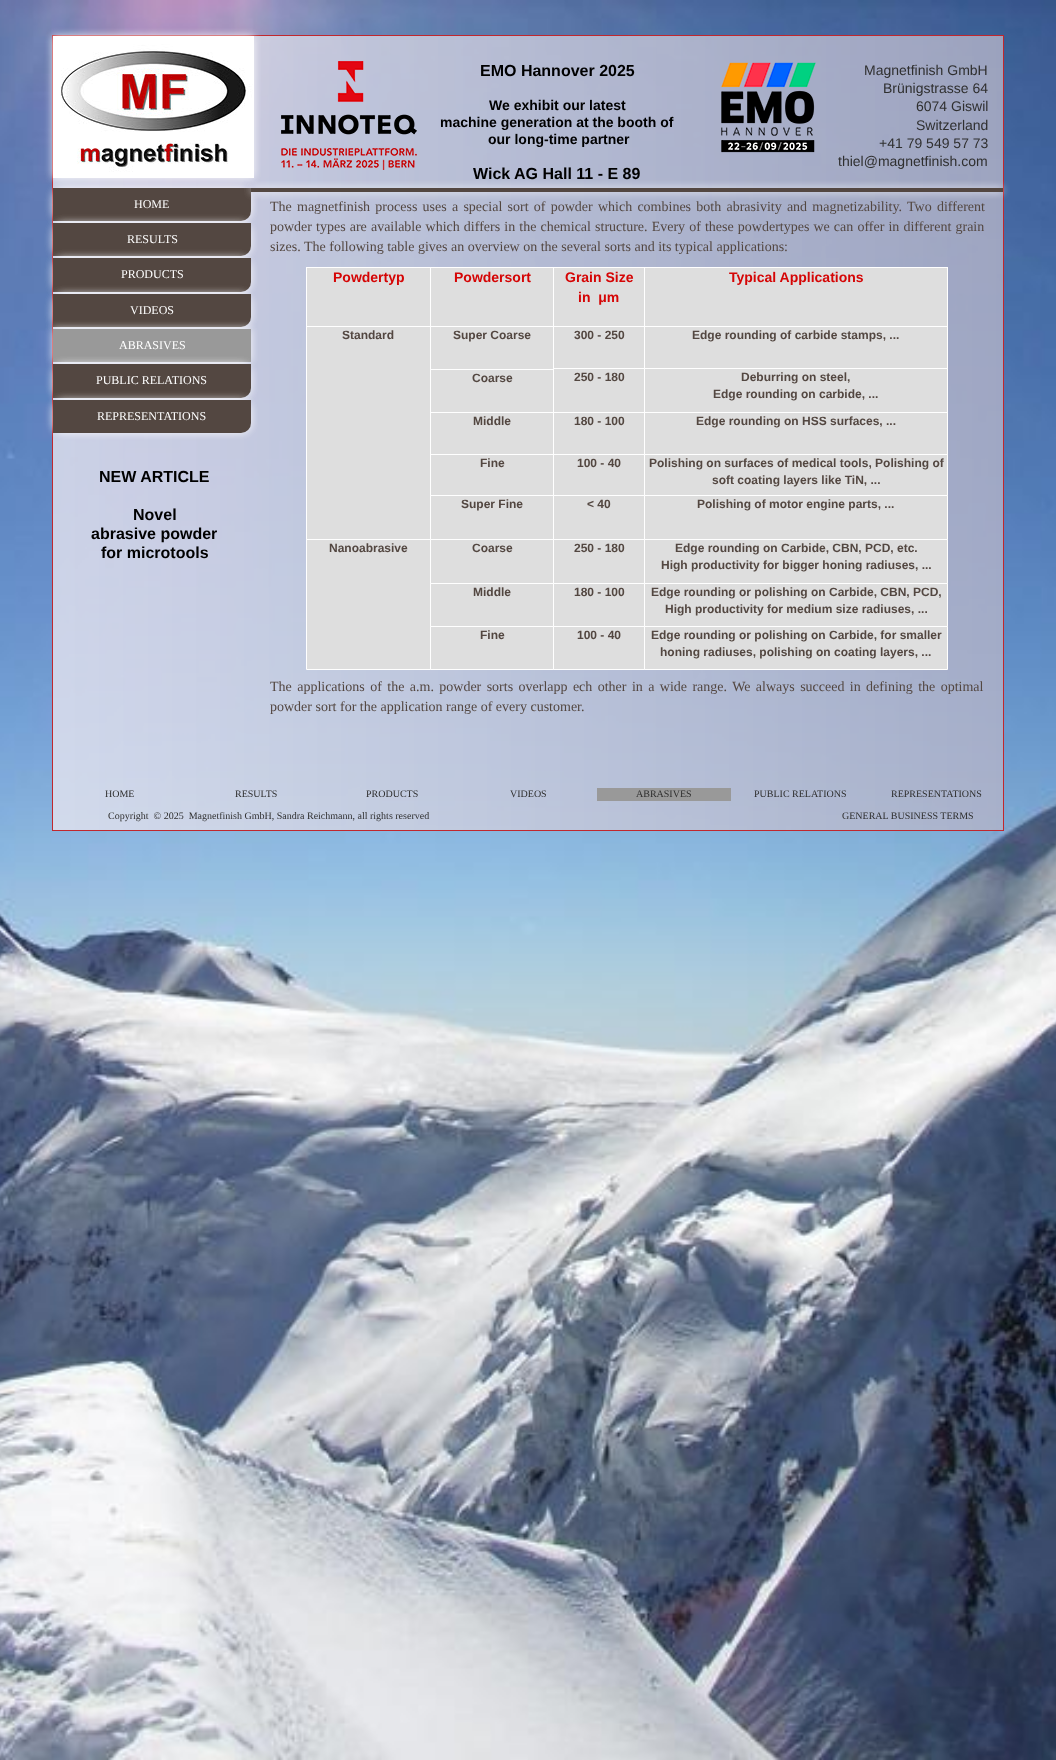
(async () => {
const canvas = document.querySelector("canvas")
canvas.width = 1056
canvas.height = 1760
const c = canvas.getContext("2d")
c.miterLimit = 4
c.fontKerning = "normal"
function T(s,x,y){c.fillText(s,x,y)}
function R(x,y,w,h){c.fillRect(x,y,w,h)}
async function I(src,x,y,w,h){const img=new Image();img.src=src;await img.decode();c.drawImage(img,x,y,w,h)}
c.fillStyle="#fff"
R(0,0,1056,1760)
await I("1.png",0,0,1056,1760)
c.strokeStyle="#c1272d"
c.strokeRect(52.5,35.5,951,795)
c.fillStyle="#ffffff80"
c.filter="blur(4px)"
c.beginPath()
c.roundRect(53,188,198,33,10)
c.fill()
c.filter="none"
c.filter="blur(4px)"
c.beginPath()
c.roundRect(53,188,198,33,10)
c.fill()
c.filter="none"
c.fillStyle="#534741"
c.beginPath()
c.roundRect(53,188,198,33,[0,0,10,0])
c.fill()
c.fillStyle="#ffffff80"
c.filter="blur(4px)"
c.beginPath()
c.rect(251,188,752,4)
c.fill()
c.filter="none"
c.filter="blur(4px)"
c.beginPath()
c.rect(251,188,752,4)
c.fill()
c.filter="none"
c.fillStyle="#534741"
R(251,188,752,4)
c.fillStyle="#ffffff80"
c.filter="blur(4px)"
c.beginPath()
c.rect(53,36,201,142)
c.fill()
c.filter="none"
c.filter="blur(4px)"
c.beginPath()
c.rect(53,36,201,142)
c.fill()
c.filter="none"
await I("2.png",53,36,201,142)
await I("3.png",281,61,136,109)
c.font="bold 16px Liberation Sans"
c.fillStyle="#000"
T("EMO Hannover 2025",480,76)
c.font="bold 14px Liberation Sans"
T("We exhibit our latest",489,110)
T("machine generation at the booth of",440,127)
T("our long-time partner",488,144)
c.font="bold 16px Liberation Sans"
T("Wick AG Hall 11 - E 89",473,179)
await I("4.png",721,62,95,91)
c.font="14px Liberation Sans"
c.fillStyle="#2f2f2f"
T("Magnetfinish GmbH",864,75)
T("Brünigstrasse 64",883,93)
T("6074 Giswil",916,111)
T("Switzerland",916,130)
T("+41 79 549 57 73",879,148)
T("thiel@magnetfinish.com",838,166)
c.font="12px Liberation Serif"
c.fillStyle="#fff"
T("HOME",134,208)
c.fillStyle="#ffffff80"
c.filter="blur(4px)"
c.beginPath()
c.roundRect(53,223,198,33,10)
c.fill()
c.filter="none"
c.filter="blur(4px)"
c.beginPath()
c.roundRect(53,223,198,33,10)
c.fill()
c.filter="none"
c.fillStyle="#534741"
c.beginPath()
c.roundRect(53,223,198,33,[0,0,10,0])
c.fill()
c.fillStyle="#fff"
T("RESULTS",127,243)
c.fillStyle="#ffffff80"
c.filter="blur(4px)"
c.beginPath()
c.roundRect(53,258,198,34,10)
c.fill()
c.filter="none"
c.filter="blur(4px)"
c.beginPath()
c.roundRect(53,258,198,34,10)
c.fill()
c.filter="none"
c.fillStyle="#534741"
c.beginPath()
c.roundRect(53,258,198,34,[0,0,10,0])
c.fill()
c.fillStyle="#fff"
T("PRODUCTS",121,278)
c.fillStyle="#ffffff80"
c.filter="blur(4px)"
c.beginPath()
c.roundRect(53,294,198,33,10)
c.fill()
c.filter="none"
c.filter="blur(4px)"
c.beginPath()
c.roundRect(53,294,198,33,10)
c.fill()
c.filter="none"
c.fillStyle="#534741"
c.beginPath()
c.roundRect(53,294,198,33,[0,0,10,0])
c.fill()
c.fillStyle="#fff"
T("VIDEOS",130,314)
c.fillStyle="#ffffff80"
c.filter="blur(4px)"
c.beginPath()
c.rect(53,329,198,33)
c.fill()
c.filter="none"
c.filter="blur(4px)"
c.beginPath()
c.rect(53,329,198,33)
c.fill()
c.filter="none"
c.fillStyle="#999"
R(53,329,198,33)
c.fillStyle="#fff"
T("ABRASIVES",119,349)
c.fillStyle="#ffffff80"
c.filter="blur(4px)"
c.beginPath()
c.roundRect(53,364,198,34,10)
c.fill()
c.filter="none"
c.filter="blur(4px)"
c.beginPath()
c.roundRect(53,364,198,34,10)
c.fill()
c.filter="none"
c.fillStyle="#534741"
c.beginPath()
c.roundRect(53,364,198,34,[0,0,10,0])
c.fill()
c.fillStyle="#fff"
T("PUBLIC RELATIONS",96,384)
c.fillStyle="#ffffff80"
c.filter="blur(4px)"
c.beginPath()
c.roundRect(53,400,198,33,10)
c.fill()
c.filter="none"
c.filter="blur(4px)"
c.beginPath()
c.roundRect(53,400,198,33,10)
c.fill()
c.filter="none"
c.fillStyle="#534741"
c.beginPath()
c.roundRect(53,400,198,33,[0,0,10,0])
c.fill()
c.fillStyle="#fff"
T("REPRESENTATIONS",97,420)
c.font="bold 16px Liberation Sans"
c.fillStyle="#000"
T("NEW ARTICLE",99,482)
T("Novel",133,520)
T("abrasive powder",91,539)
T("for microtools",101,558)
c.wordSpacing="1.75px"
c.font="14px Liberation Serif"
c.fillStyle="#534741"
T("The magnetfinish process uses a special sort of powder which combines both abrasivity and magnetizability. Two different",270,211)
c.wordSpacing="0.6px"
T("powder types are available which differs in the chemical structure. Every of these powdertypes we can offer in different grain",270,231)
c.wordSpacing="0px"
T("sizes. The following table gives an overview on the several sorts and its typical applications:",270,251)
c.fillStyle="#dedede"
R(307,268,123,58)
c.strokeStyle="#fff"
c.strokeRect(306.5,267.5,124,60)
c.font="bold 14px Liberation Sans"
c.fillStyle="#d50505"
T("Powdertyp",333,282)
c.fillStyle="#dedede"
R(431,268,122,58)
R(307,327,123,212)
c.strokeRect(306.5,326.5,124,214)
c.strokeRect(430.5,267.5,124,60)
c.fillStyle="#d50505"
T("Powdersort",454,282)
c.fillStyle="#dedede"
R(554,268,90,58)
c.strokeRect(553.5,267.5,91,60)
c.fillStyle="#d50505"
T("Grain Size",565,282)
T("in  μm",578,302)
c.fillStyle="#dedede"
R(645,268,302,58)
c.strokeRect(644.5,267.5,303,60)
c.fillStyle="#d50505"
T("Typical Applications",729,282)
c.font="bold 12px Liberation Sans"
c.fillStyle="#534741"
T("Standard",342,339)
c.fillStyle="#dedede"
R(431,327,122,42)
c.strokeRect(430.5,326.5,124,43)
c.fillStyle="#534741"
T("Super Coarse",453,339)
c.fillStyle="#dedede"
R(554,327,90,41)
c.beginPath()
c.rect(430.5,369.5,123,43)
c.fill()
c.stroke()
c.strokeRect(553.5,326.5,91,43)
c.fillStyle="#534741"
T("300 - 250",574,339)
c.fillStyle="#dedede"
R(645,327,302,41)
R(431,413,122,41)
c.strokeRect(430.5,412.5,123,43)
c.beginPath()
c.rect(553.5,368.5,91,44)
c.fill()
c.stroke()
c.strokeRect(644.5,326.5,303,43)
c.fillStyle="#534741"
T("Edge rounding of carbide stamps, ...",692,339)
T("Coarse",472,382)
T("250 - 180",574,381)
c.fillStyle="#dedede"
R(554,413,90,41)
R(431,455,122,40)
c.strokeRect(430.5,454.5,123,43)
c.strokeRect(553.5,412.5,91,43)
c.beginPath()
c.rect(644.5,368.5,303,44)
c.fill()
c.stroke()
c.fillStyle="#534741"
T("Deburring on steel,",741,381)
T("Edge rounding on carbide, ...",713,398)
T("Middle",473,425)
T("180 - 100",574,425)
c.fillStyle="#dedede"
R(645,413,302,41)
R(554,455,90,40)
c.beginPath()
c.rect(306.5,539.5,124,130)
c.fill()
c.stroke()
c.beginPath()
c.rect(430.5,495.5,123,44)
c.fill()
c.stroke()
c.strokeRect(553.5,454.5,91,42)
c.strokeRect(644.5,412.5,303,43)
c.fillStyle="#534741"
T("Edge rounding on HSS surfaces, ...",696,425)
T("Fine",480,467)
T("100 - 40",577,467)
c.fillStyle="#dedede"
c.beginPath()
c.rect(430.5,539.5,123,44)
c.fill()
c.stroke()
c.beginPath()
c.rect(553.5,495.5,91,44)
c.fill()
c.stroke()
c.beginPath()
c.rect(644.5,454.5,303,41)
c.fill()
c.stroke()
c.fillStyle="#534741"
T("Polishing on surfaces of medical tools, Polishing of",649,467)
T("soft coating layers like TiN, ...",712,484)
T("Super Fine",461,508)
T("< 40",587,508)
c.fillStyle="#dedede"
c.beginPath()
c.rect(430.5,583.5,123,43)
c.fill()
c.stroke()
c.beginPath()
c.rect(553.5,539.5,91,44)
c.fill()
c.stroke()
c.beginPath()
c.rect(644.5,495.5,303,44)
c.fill()
c.stroke()
c.fillStyle="#534741"
T("Polishing of motor engine parts, ...",697,508)
T("Nanoabrasive",329,552)
T("Coarse",472,552)
T("250 - 180",574,552)
c.fillStyle="#dedede"
c.beginPath()
c.rect(430.5,626.5,123,43)
c.fill()
c.stroke()
c.beginPath()
c.rect(553.5,583.5,91,43)
c.fill()
c.stroke()
c.beginPath()
c.rect(644.5,539.5,303,44)
c.fill()
c.stroke()
c.fillStyle="#534741"
T("Edge rounding on Carbide, CBN, PCD, etc.",675,552)
T("High productivity for bigger honing radiuses, ...",661,569)
T("Middle",473,596)
T("180 - 100",574,596)
c.fillStyle="#dedede"
c.beginPath()
c.rect(553.5,626.5,91,43)
c.fill()
c.stroke()
c.beginPath()
c.rect(644.5,583.5,303,43)
c.fill()
c.stroke()
c.fillStyle="#534741"
T("Edge rounding or polishing on Carbide, CBN, PCD,",651,596)
T("High productivity for medium size radiuses, ...",665,613)
T("Fine",480,639)
T("100 - 40",577,639)
c.fillStyle="#dedede"
c.beginPath()
c.rect(644.5,626.5,303,43)
c.fill()
c.stroke()
c.fillStyle="#534741"
T("Edge rounding or polishing on Carbide, for smaller",651,639)
T("honing radiuses, polishing on coating layers, ...",660,656)
c.wordSpacing="1.9px"
c.font="14px Liberation Serif"
T("The applications of the a.m. powder sorts overlapp ech other in a wide range. We always succeed in defining the optimal",270,691)
c.wordSpacing="0px"
T("powder sort for the application range of every customer.",270,711)
c.font="10px Liberation Serif"
c.fillStyle="#2f2f2f"
T("HOME",105,797)
T("RESULTS",235,797)
T("PRODUCTS",366,797)
T("VIDEOS",510,797)
c.fillStyle="#999"
R(597,788,134,13)
c.fillStyle="#2f2f2f"
T("ABRASIVES",636,797)
T("PUBLIC RELATIONS",754,797)
T("REPRESENTATIONS",891,797)
T("Copyright  © 2025  Magnetfinish GmbH, Sandra Reichmann, all rights reserved",108,819)
T("GENERAL BUSINESS TERMS",842,819)
})()
